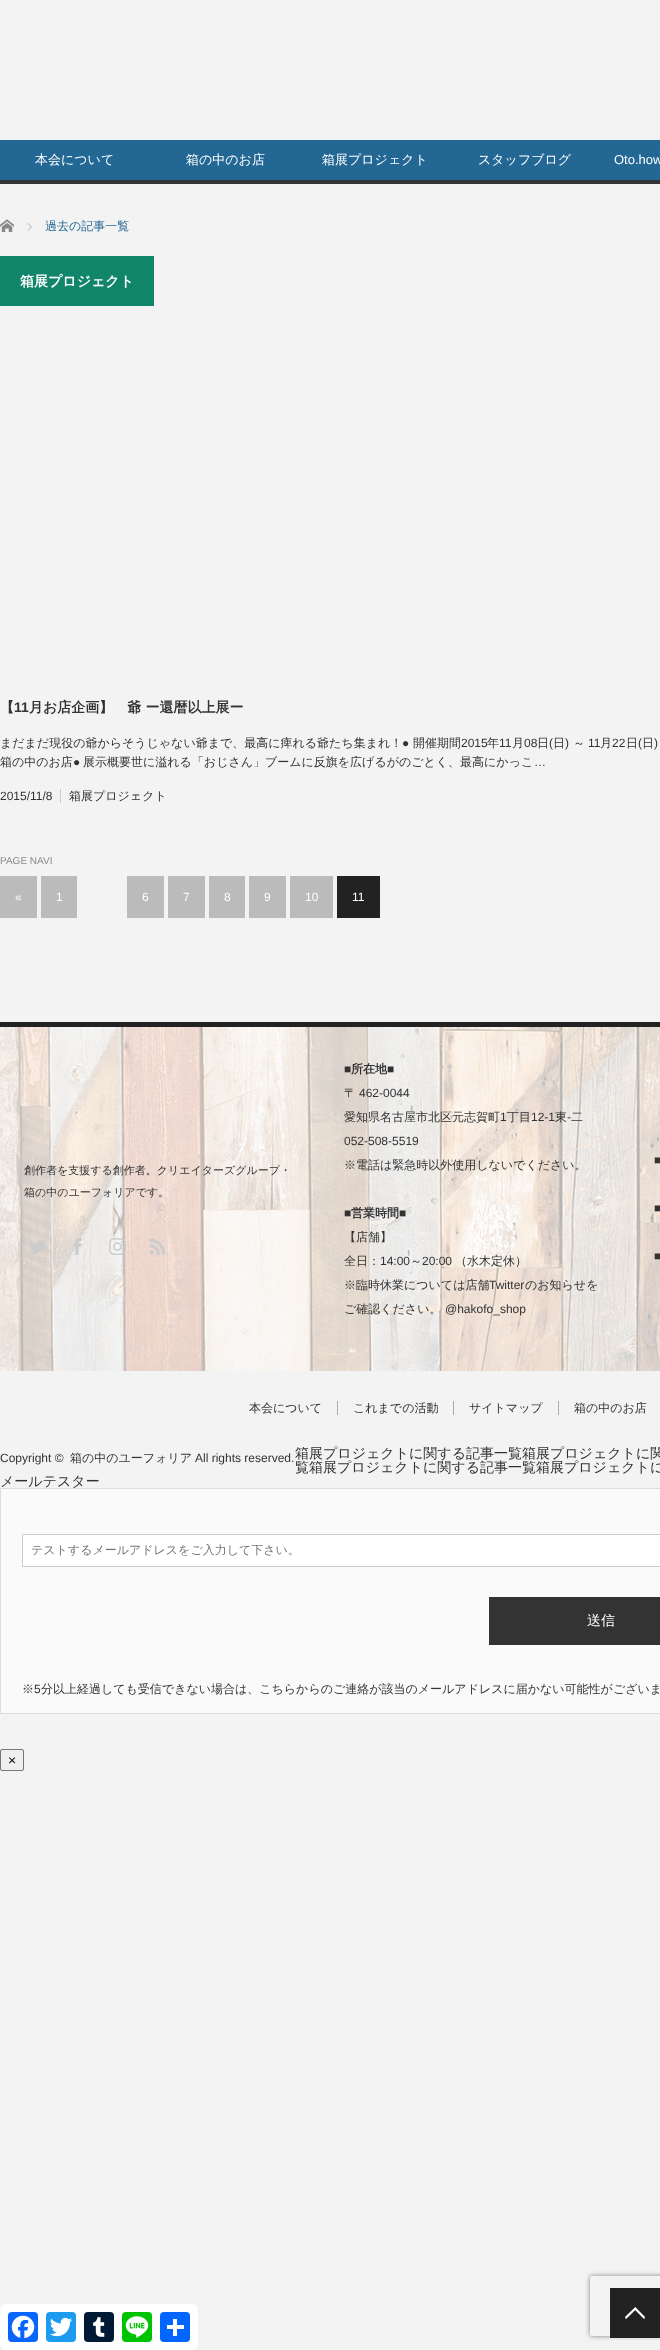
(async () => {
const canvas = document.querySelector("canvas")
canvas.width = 660
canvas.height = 2350
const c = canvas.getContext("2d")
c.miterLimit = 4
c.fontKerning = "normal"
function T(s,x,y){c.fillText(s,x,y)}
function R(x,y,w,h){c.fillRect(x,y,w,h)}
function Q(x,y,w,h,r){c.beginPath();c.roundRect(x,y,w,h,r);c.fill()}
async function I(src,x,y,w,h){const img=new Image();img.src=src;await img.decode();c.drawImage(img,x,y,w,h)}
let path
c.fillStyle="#f3f3f3"
R(0,0,660,2350)
c.fillStyle="#333"
R(0,180,660,4)
c.fillStyle="#236794"
R(0,140,660,40)
c.font="500 13px WenQuanYi Zen Hei"
c.fillStyle="#fff"
T("本会について",35,164)
T("箱の中のお店",186,164)
T("箱展プロジェクト",322,164)
T("スタッフブログ",478,164)
c.font="13px Liberation Sans"
T("Oto.how",614,164)
await I("1.png",0,219,14,13)
await I("2.png",27,223,5,8)
c.font="500 12px WenQuanYi Zen Hei"
c.fillStyle="#236794"
T("過去の記事一覧",45,230)
c.fillStyle="#11856a"
R(0,256,154,50)
c.font="bold 14px WenQuanYi Zen Hei"
c.fillStyle="#fff"
T("箱展プロジェクト",20,286)
c.fillStyle="#333"
T("【",0,712)
c.font="bold 14px Liberation Sans"
T("11",14,712)
c.font="bold 14px WenQuanYi Zen Hei"
T("月お店企画】　爺 ー還暦以上展ー",29,712)
c.font="500 12px WenQuanYi Zen Hei"
T("まだまだ現役の爺からそうじゃない爺まで、最高に痺れる爺たち集まれ！",0,747)
c.font="12px Liberation Sans"
T("●",402,747)
c.font="500 12px WenQuanYi Zen Hei"
T("開催期間",413,747)
c.font="12px Liberation Sans"
T("2015",461,747)
c.font="500 12px WenQuanYi Zen Hei"
T("年",487,747)
c.font="12px Liberation Sans"
T("11",499,747)
c.font="500 12px WenQuanYi Zen Hei"
T("月",512,747)
c.font="12px Liberation Sans"
T("08",524,747)
c.font="500 12px WenQuanYi Zen Hei"
T("日",537,747)
c.font="12px Liberation Sans"
T("(",549,747)
c.font="500 12px WenQuanYi Zen Hei"
T("日",553,747)
c.font="12px Liberation Sans"
T(")",565,747)
c.font="500 12px WenQuanYi Zen Hei"
T("～",573,747)
c.font="12px Liberation Sans"
T("11",588,747)
c.font="500 12px WenQuanYi Zen Hei"
T("月",600,747)
c.font="12px Liberation Sans"
T("22",612,747)
c.font="500 12px WenQuanYi Zen Hei"
T("日",626,747)
c.font="12px Liberation Sans"
T("(",638,747)
c.font="500 12px WenQuanYi Zen Hei"
T("日",642,747)
c.font="12px Liberation Sans"
T(")",654,747)
c.font="500 12px WenQuanYi Zen Hei"
T("箱の中のお店",0,766)
c.font="12px Liberation Sans"
T("●",73,766)
c.font="500 12px WenQuanYi Zen Hei"
T("展示概要世に溢れる「おじさん」ブームに反旗を広げるがのごとく、最高にかっこ",83,766)
c.font="12px Liberation Sans"
T("…",534,766)
T("2015/11/8",0,800)
c.fillStyle="#ccc"
R(60,789,1,14)
c.font="500 12px WenQuanYi Zen Hei"
c.fillStyle="#333"
T("箱展プロジェクト",69,800)
c.font="10px Liberation Sans"
c.fillStyle="#888"
T("PAGE NAVI",0,864)
c.fillStyle="#bbb"
R(0,876,37,42)
c.font="12px Liberation Sans"
c.fillStyle="#fff"
T("«",15,901)
c.fillStyle="#bbb"
R(41,876,36,42)
c.fillStyle="#fff"
T("1",56,901)
c.fillStyle="#bbb"
R(127,876,37,42)
c.fillStyle="#fff"
T("6",142,901)
c.fillStyle="#bbb"
R(168,876,37,42)
c.fillStyle="#fff"
T("7",183,901)
c.fillStyle="#bbb"
R(209,876,36,42)
c.fillStyle="#fff"
T("8",224,901)
c.fillStyle="#bbb"
R(249,876,37,42)
c.fillStyle="#fff"
T("9",264,901)
c.fillStyle="#bbb"
R(290,876,43,42)
c.fillStyle="#fff"
T("10",305,901)
c.fillStyle="#222"
R(337,876,43,42)
c.fillStyle="#fff"
T("11",352,901)
await I("3.png",0,1027,660,344)
c.fillStyle="#222"
R(0,1022,660,5)
c.font="500 11px WenQuanYi Zen Hei"
c.fillStyle="#333"
T("創作者を支援する創作者。クリエイターズグループ・",24,1174)
T("箱の中のユーフォリアです。",24,1196)
await I("4.png",30,1240,16,14)
await I("5.png",73,1238,9,17)
await I("6.png",109,1238,17,17)
await I("7.png",149,1238,17,17)
c.font="bold 12px Liberation Sans"
T("■",344,1073)
c.font="bold 12px WenQuanYi Zen Hei"
T("所在地",351,1073)
c.font="bold 12px Liberation Sans"
T("■",387,1073)
c.font="500 12px WenQuanYi Zen Hei"
T("〒",344,1097)
c.font="12px Liberation Sans"
T("462-0044",359,1097)
c.font="500 12px WenQuanYi Zen Hei"
T("愛知県名古屋市北区元志賀町",344,1121)
c.font="12px Liberation Sans"
T("1",500,1121)
c.font="500 12px WenQuanYi Zen Hei"
T("丁目",507,1121)
c.font="12px Liberation Sans"
T("12-1",531,1121)
c.font="500 12px WenQuanYi Zen Hei"
T("東",555,1121)
c.font="12px Liberation Sans"
T("-",567,1121)
c.font="500 12px WenQuanYi Zen Hei"
T("二",571,1121)
c.font="12px Liberation Sans"
T("052-508-5519",344,1145)
c.font="500 12px WenQuanYi Zen Hei"
T("※電話は緊急時以外使用しないでください。",344,1169)
c.font="bold 12px Liberation Sans"
T("■",344,1217)
c.font="bold 12px WenQuanYi Zen Hei"
T("営業時間",351,1217)
c.font="bold 12px Liberation Sans"
T("■",399,1217)
c.font="500 12px WenQuanYi Zen Hei"
T("【店舗】",344,1241)
T("全日：",344,1265)
c.font="12px Liberation Sans"
T("14:00",380,1265)
c.font="500 12px WenQuanYi Zen Hei"
T("～",410,1265)
c.font="12px Liberation Sans"
T("20:00",422,1265)
c.font="500 12px WenQuanYi Zen Hei"
T("（水木定休）",455,1265)
T("※臨時休業については店舗",344,1289)
c.font="12px Liberation Sans"
T("Twitter",489,1289)
c.font="500 12px WenQuanYi Zen Hei"
T("のお知らせを",525,1289)
T("ご確認ください。",344,1313)
c.font="12px Liberation Sans"
T("@hakofo_shop",445,1313)
T("■",654,1164)
T("■",654,1212)
T("■",654,1260)
c.font="500 12px WenQuanYi Zen Hei"
T("本会について",249,1412)
T("これまでの活動",353,1412)
c.fillStyle="#aaa"
R(337,1401,1,14)
c.fillStyle="#333"
T("サイトマップ",469,1412)
c.fillStyle="#aaa"
R(453,1401,1,14)
c.fillStyle="#333"
T("箱の中のお店",574,1412)
c.fillStyle="#aaa"
R(558,1401,1,14)
c.font="12px Liberation Sans"
c.fillStyle="#333"
T("Copyright ©",0,1462)
c.font="500 12px WenQuanYi Zen Hei"
T("箱の中のユーフォリア",70,1462)
c.font="12px Liberation Sans"
T("All rights reserved.",195,1462)
c.font="500 14px WenQuanYi Zen Hei"
T("箱展プロジェクトに関する記事一覧箱展プロジェクトに関",295,1458)
T("覧箱展プロジェクトに関する記事一覧箱展プロジェクトに",295,1472)
c.fillStyle="#fafafa"
c.beginPath()
c.rect(.5,1488.5,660,225)
c.fill()
c.strokeStyle="#ddd"
c.stroke()
c.fillStyle="#333"
T("メールテスター",0,1486)
c.fillStyle="#fff"
c.beginPath()
c.rect(22.5,1534.5,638,32)
c.fill()
c.strokeStyle="#ccc"
c.stroke()
c.font="500 12px WenQuanYi Zen Hei"
c.fillStyle="#757575"
T("テストするメールアドレスをご入力して下さい。",31,1554)
c.fillStyle="#333"
R(489,1597,171,48)
c.font="500 14px WenQuanYi Zen Hei"
c.fillStyle="#fff"
T("送信",587,1625)
c.font="500 12px WenQuanYi Zen Hei"
c.fillStyle="#333"
T("※",22,1693)
c.font="12px Liberation Sans"
T("5",34,1693)
c.font="500 12px WenQuanYi Zen Hei"
T("分以上経過しても受信できない場合は、こちらからのご連絡が該当のメールアドレスに届かない可能性がございま",41,1693)
c.fillStyle="#efefef"
c.beginPath()
c.roundRect(.5,1749.5,23,21,1.5)
c.fill()
c.strokeStyle="#767676"
c.stroke()
c.font="14px Liberation Sans"
c.fillStyle="#000"
T("×",8,1765)
c.save()
path = new Path2D("M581 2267h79v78h-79zm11 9h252c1 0 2 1 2 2v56c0 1-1 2-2 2h-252c-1 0-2-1-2-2v-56c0-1 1-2 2-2z")
c.clip(path,"evenodd")
c.fillStyle="#808080"
c.filter="blur(2.5px)"
c.beginPath()
c.roundRect(590,2276,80,60,2)
c.fill()
c.filter="none"
c.restore()
c.fillStyle="#fff"
Q(0,2304,198,46,6)
c.fillStyle="#0866ff"
Q(8,2312,30,30,4)
await I("8.png",11,2315,24,24)
c.fillStyle="#1d9bf0"
Q(46,2312,30,30,4)
await I("9.png",50,2317,23,20)
c.fillStyle="#001935"
Q(84,2312,30,30,4)
await I("10.png",93,2317,12,20)
c.fillStyle="#00c300"
Q(122,2312,30,30,4)
await I("11.png",125,2316,24,22)
c.fillStyle="#0166ff"
Q(160,2312,30,30,4)
c.fillStyle="#fff"
R(173,2319,4,17)
R(167,2325,17,4)
c.fillStyle="#222"
R(610,2288,50,50)
await I("12.png",625,2307,20,12)
})()
